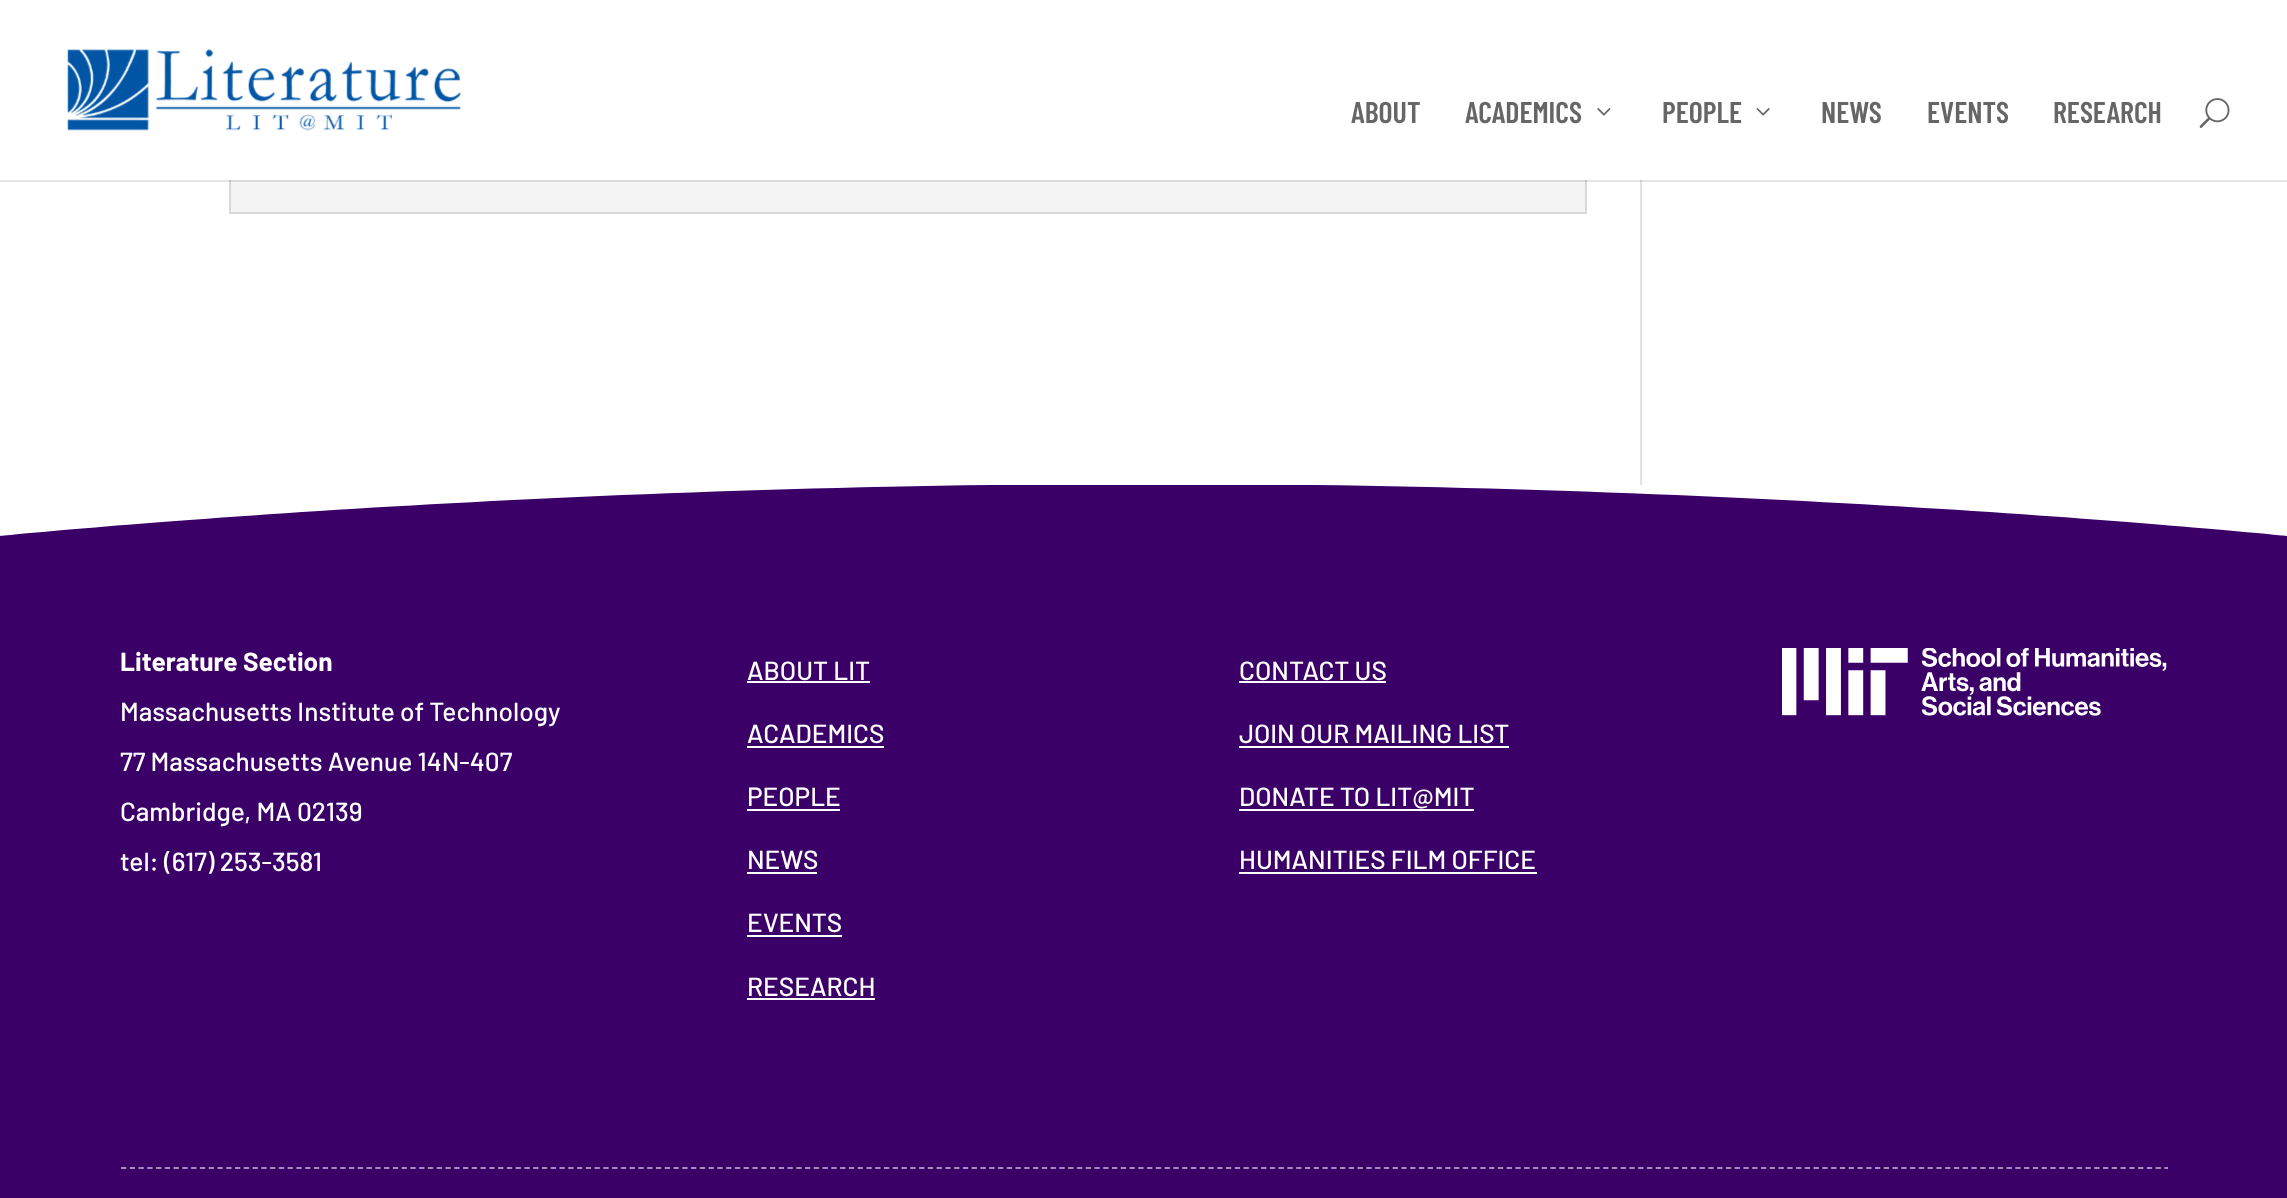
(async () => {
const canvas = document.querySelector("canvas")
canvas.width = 2287
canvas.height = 1198
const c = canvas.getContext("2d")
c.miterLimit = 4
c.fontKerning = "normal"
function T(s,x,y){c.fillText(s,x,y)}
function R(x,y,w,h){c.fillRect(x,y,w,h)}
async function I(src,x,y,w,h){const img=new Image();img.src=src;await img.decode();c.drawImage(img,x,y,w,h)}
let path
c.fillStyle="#fff"
R(0,0,2287,1198)
c.fillStyle="#f4f4f4"
R(231,180,1354,32)
c.strokeStyle="#d9d9d9"
c.lineWidth=2
c.strokeRect(230,113,1356,100)
c.fillStyle="#e2e2e2"
R(1640,180,2,305)
c.fillStyle="#0000001a"
R(0,180,2287,2)
c.fillStyle="#fff"
R(229,112,1358,68)
await I("1.png",67,49,394,82)
c.font="600 30px Barlow Condensed"
c.fillStyle="#666"
T("ABOUT",1351,123)
T("ACADEMICS",1465,123)
await I("2.png",1597,108,14,8)
T("PEOPLE",1662,123)
await I("3.png",1756,108,14,8)
T("NEWS",1821,123)
T("EVENTS",1927,123)
T("RESEARCH",2053,123)
await I("4.png",2199,98,31,30)
c.fillStyle="#3b0068"
R(0,485,2287,713)
c.save()
c.beginPath()
c.rect(0,485,2287,52)
c.clip()
c.fillStyle="#fff"
path = new Path2D("M2287 483v53c0 0-512-53-1143-52c-632 0-1144 52-1144 52v-53z")
c.fill(path)
c.restore()
path = new Path2D("M121 1168h2047")
c.strokeStyle="#a78cbb"
c.lineWidth=1.8
c.setLineDash([5.25,3.52])
c.stroke(path)
c.font="bold 26.25px Barlow"
c.fillStyle="#fff"
T("Literature Section",120,671)
c.font="500 26.25px Barlow"
T("Massachusetts Institute of Technology",120,721)
T("77 Massachusetts Avenue 14N-407",120,771)
T("Cambridge, MA 02139",120,821)
T("tel: (617) 253-3581",120,871)
T("ABOUT LIT",747,680)
R(747,681,123,2)
T("ACADEMICS",747,743)
R(747,746,137,2)
T("PEOPLE",747,806)
R(747,809,93,2)
T("NEWS",747,869)
R(747,872,70,2)
T("EVENTS",747,932)
R(747,935,95,2)
T("RESEARCH",747,996)
R(747,998,128,2)
T("CONTACT US",1239,680)
R(1239,681,147,2)
T("JOIN OUR MAILING LIST",1239,743)
R(1239,746,270,2)
T("DONATE TO LIT@MIT",1239,806)
R(1239,809,235,2)
T("HUMANITIES FILM OFFICE",1239,869)
R(1239,872,298,2)
await I("5.png",1782,648,385,68)
})()
